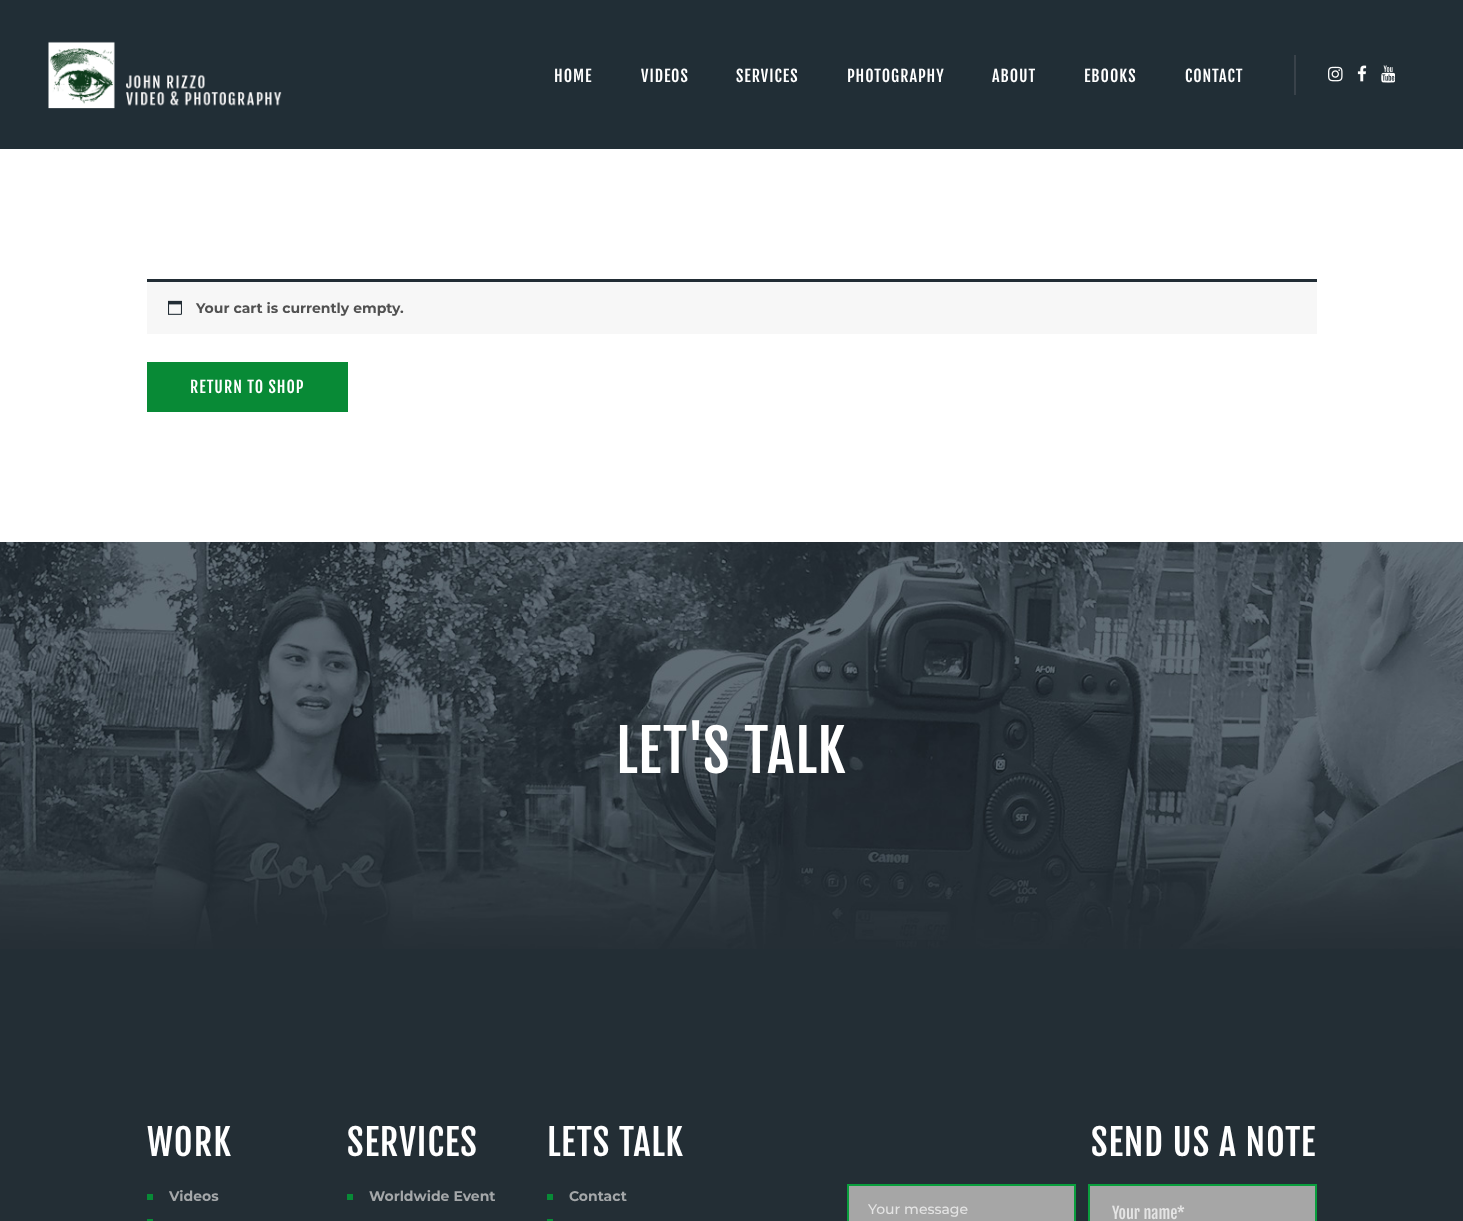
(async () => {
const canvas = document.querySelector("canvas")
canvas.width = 1463
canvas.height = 1221
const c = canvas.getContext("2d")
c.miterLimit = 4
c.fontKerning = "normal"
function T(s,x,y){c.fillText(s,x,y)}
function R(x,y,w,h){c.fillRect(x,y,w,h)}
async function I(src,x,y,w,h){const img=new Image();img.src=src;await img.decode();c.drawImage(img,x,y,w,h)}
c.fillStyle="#fff"
R(0,0,1463,1221)
c.fillStyle="#212e36"
R(0,0,1463,149)
await I("1.png",48,41,234,68)
c.letterSpacing="1px"
c.font="16px Fjalla One"
c.fillStyle="#fff"
T("HOME",554,82)
T("VIDEOS",641,82)
T("SERVICES",736,82)
T("PHOTOGRAPHY",847,82)
T("ABOUT",992,82)
T("EBOOKS",1084,82)
T("CONTACT",1185,82)
c.fillStyle="#39424a"
R(1294,55,2,40)
await I("2.png",1328,66,15,16)
await I("3.png",1357,65,10,17)
await I("4.png",1381,65,14,18)
c.fillStyle="#f7f7f7"
R(147,282,1170,52)
c.fillStyle="#222d35"
R(147,279,1170,3)
await I("5.png",168,300,14,15)
c.letterSpacing="0px"
c.font="bold 14px Montserrat"
c.fillStyle="#515151"
T("Your cart is currently empty.",196,313)
c.fillStyle="#088a36"
R(147,362,201,50)
c.letterSpacing="1px"
c.font="16px Fjalla One"
c.fillStyle="#fff"
T("RETURN TO SHOP",190,393)
c.fillStyle="#232e35"
R(0,949,1463,272)
await I("6.png",0,542,1463,407)
c.letterSpacing="1.25px"
c.font="57.5px Fjalla One"
c.fillStyle="#fff"
T("LET'S TALK",616,773)
c.letterSpacing="1px"
c.font="36px Fjalla One"
T("WORK",147,1156)
c.fillStyle="#088a36"
R(147,1194,6,6)
c.letterSpacing="0px"
c.font="bold 14px Montserrat"
c.fillStyle="#a4a7a9"
T("Videos",169,1201)
c.fillStyle="#088a36"
R(147,1219,6,2)
c.letterSpacing="1px"
c.font="36px Fjalla One"
c.fillStyle="#fff"
T("SERVICES",347,1156)
c.fillStyle="#088a36"
R(347,1194,6,6)
c.letterSpacing="0px"
c.font="bold 14px Montserrat"
c.fillStyle="#a4a7a9"
T("Worldwide Event",369,1201)
c.letterSpacing="1px"
c.font="36px Fjalla One"
c.fillStyle="#fff"
T("LETS TALK",547,1156)
c.fillStyle="#088a36"
R(547,1194,6,6)
c.letterSpacing="0px"
c.font="bold 14px Montserrat"
c.fillStyle="#a4a7a9"
T("Contact",569,1201)
c.fillStyle="#088a36"
R(547,1219,6,2)
c.letterSpacing="1px"
c.font="36px Fjalla One"
c.fillStyle="#fff"
T("SEND US A NOTE",1091,1156)
c.fillStyle="#a6a6a6"
c.beginPath()
c.rect(848,1185,227,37)
c.fill()
c.strokeStyle="#099e3d"
c.lineWidth=2
c.stroke()
c.letterSpacing="0px"
c.font="500 14px Montserrat"
c.fillStyle="#e4e4e4"
T("Your message",868,1214)
c.fillStyle="#a6a6a6"
c.beginPath()
c.rect(1089,1185,227,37)
c.fill()
c.stroke()
c.font="16px Fjalla One"
c.fillStyle="#e4e4e4"
T("Your name*",1112,1219)
})()
